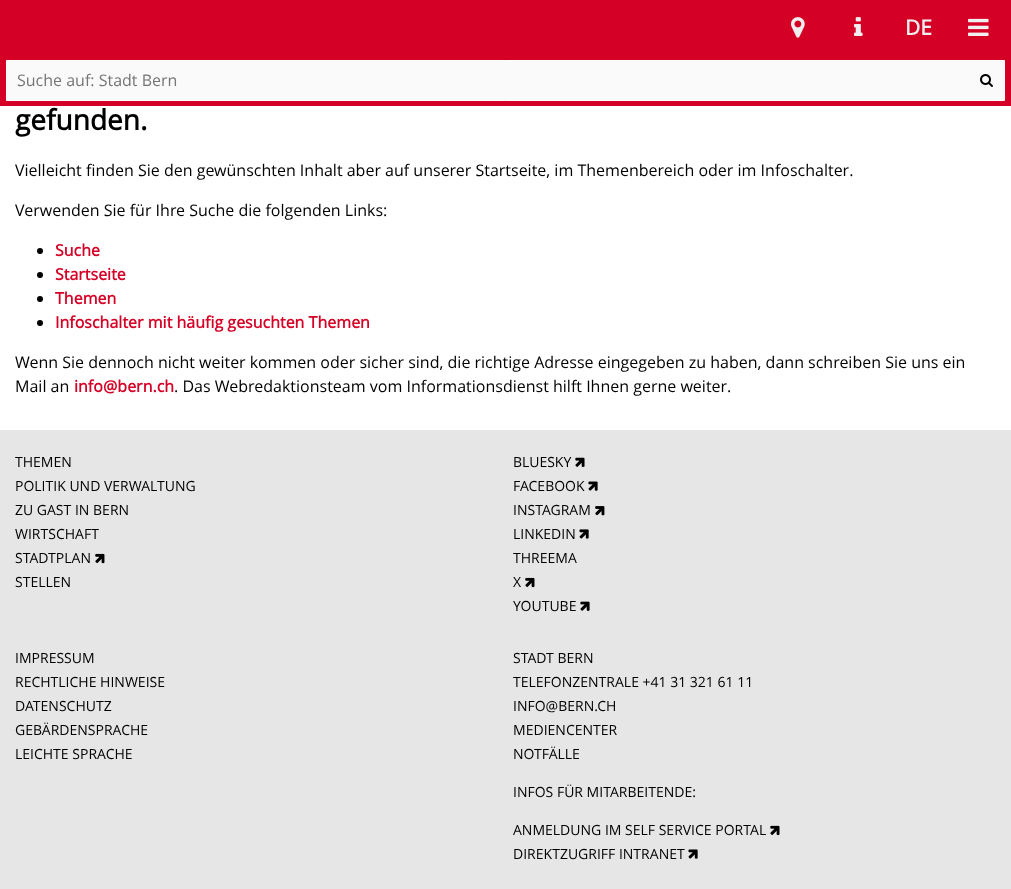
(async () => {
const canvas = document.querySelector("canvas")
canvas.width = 1011
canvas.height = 889
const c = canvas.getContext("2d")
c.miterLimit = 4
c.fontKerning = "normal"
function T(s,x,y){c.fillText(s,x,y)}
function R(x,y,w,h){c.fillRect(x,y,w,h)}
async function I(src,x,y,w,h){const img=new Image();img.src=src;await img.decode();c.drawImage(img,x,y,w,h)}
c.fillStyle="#e6e6e6"
R(0,0,1011,889)
c.fillStyle="#d50025"
R(0,0,1011,106)
await I("1.png",791,17,14,21)
await I("2.png",854,17,9,19)
c.font="bold 21px Open Sans"
c.fillStyle="#efefef"
T("DE",905,35)
await I("3.png",968,18,21,18)
c.fillStyle="#fafafa"
c.beginPath()
c.rect(6.5,60.5,998,40)
c.fill()
c.strokeStyle="#fff"
c.stroke()
c.font="16px Open Sans"
c.fillStyle="#757575"
T("Suche auf: Stadt Bern",17,86)
await I("4.png",980,74,13,13)
c.fillStyle="#fff"
R(0,106,1011,324)
c.font="bold 28px Open Sans"
c.fillStyle="#000"
T("gefunden.",15,130)
c.font="16px Open Sans"
T("Vielleicht finden Sie den gewünschten Inhalt aber auf unserer Startseite, im Themenbereich oder im Infoschalter.",15,176)
T("Verwenden Sie für Ihre Suche die folgenden Links:",15,216)
c.beginPath()
c.arc(40,251,3,0,7)
c.fill()
c.font="bold 16px Open Sans"
c.fillStyle="#d50025"
T("Suche",55,256)
c.fillStyle="#000"
c.beginPath()
c.arc(40,275,3,0,7)
c.fill()
c.fillStyle="#d50025"
T("Startseite",55,280)
c.fillStyle="#000"
c.beginPath()
c.arc(40,299,3,0,7)
c.fill()
c.fillStyle="#d50025"
T("Themen",55,304)
c.fillStyle="#000"
c.beginPath()
c.arc(40,323,3,0,7)
c.fill()
c.fillStyle="#d50025"
T("Infoschalter mit häufig gesuchten Themen",55,328)
c.font="16px Open Sans"
c.fillStyle="#000"
T("Wenn Sie dennoch nicht weiter kommen oder sicher sind, die richtige Adresse eingegeben zu haben, dann schreiben Sie uns ein",15,368)
T("Mail an",15,392)
c.font="bold 16px Open Sans"
c.fillStyle="#d50025"
T("info@bern.ch",74,392)
c.font="16px Open Sans"
c.fillStyle="#000"
T(". Das Webredaktionsteam vom Informationsdienst hilft Ihnen gerne weiter.",174,392)
c.font="14px Open Sans"
T("THEMEN",15,467)
T("POLITIK UND VERWALTUNG",15,491)
T("ZU GAST IN BERN",15,515)
T("WIRTSCHAFT",15,539)
T("STADTPLAN",15,563)
await I("5.png",95,553,10,11)
T("STELLEN",15,587)
T("BLUESKY",513,467)
await I("6.png",575,457,10,10)
T("FACEBOOK",513,491)
await I("7.png",588,481,10,10)
T("INSTAGRAM",513,515)
await I("8.png",595,506,10,10)
T("LINKEDIN",513,539)
await I("9.png",579,529,10,10)
T("THREEMA",513,563)
T("X",513,587)
await I("10.png",525,577,10,11)
T("YOUTUBE",513,611)
await I("11.png",580,601,10,10)
T("IMPRESSUM",15,663)
T("RECHTLICHE HINWEISE",15,687)
T("DATENSCHUTZ",15,711)
T("GEBÄRDENSPRACHE",15,735)
T("LEICHTE SPRACHE",15,759)
T("STADT BERN",513,663)
T("TELEFONZENTRALE +41 31 321 61 11",513,687)
T("INFO@BERN.CH",513,711)
T("MEDIENCENTER",513,735)
T("NOTFÄLLE",513,759)
T("INFOS FÜR MITARBEITENDE:",513,797)
T("ANMELDUNG IM SELF SERVICE PORTAL",513,835)
await I("12.png",770,825,10,11)
T("DIREKTZUGRIFF INTRANET",513,859)
await I("13.png",688,849,10,10)
})()
